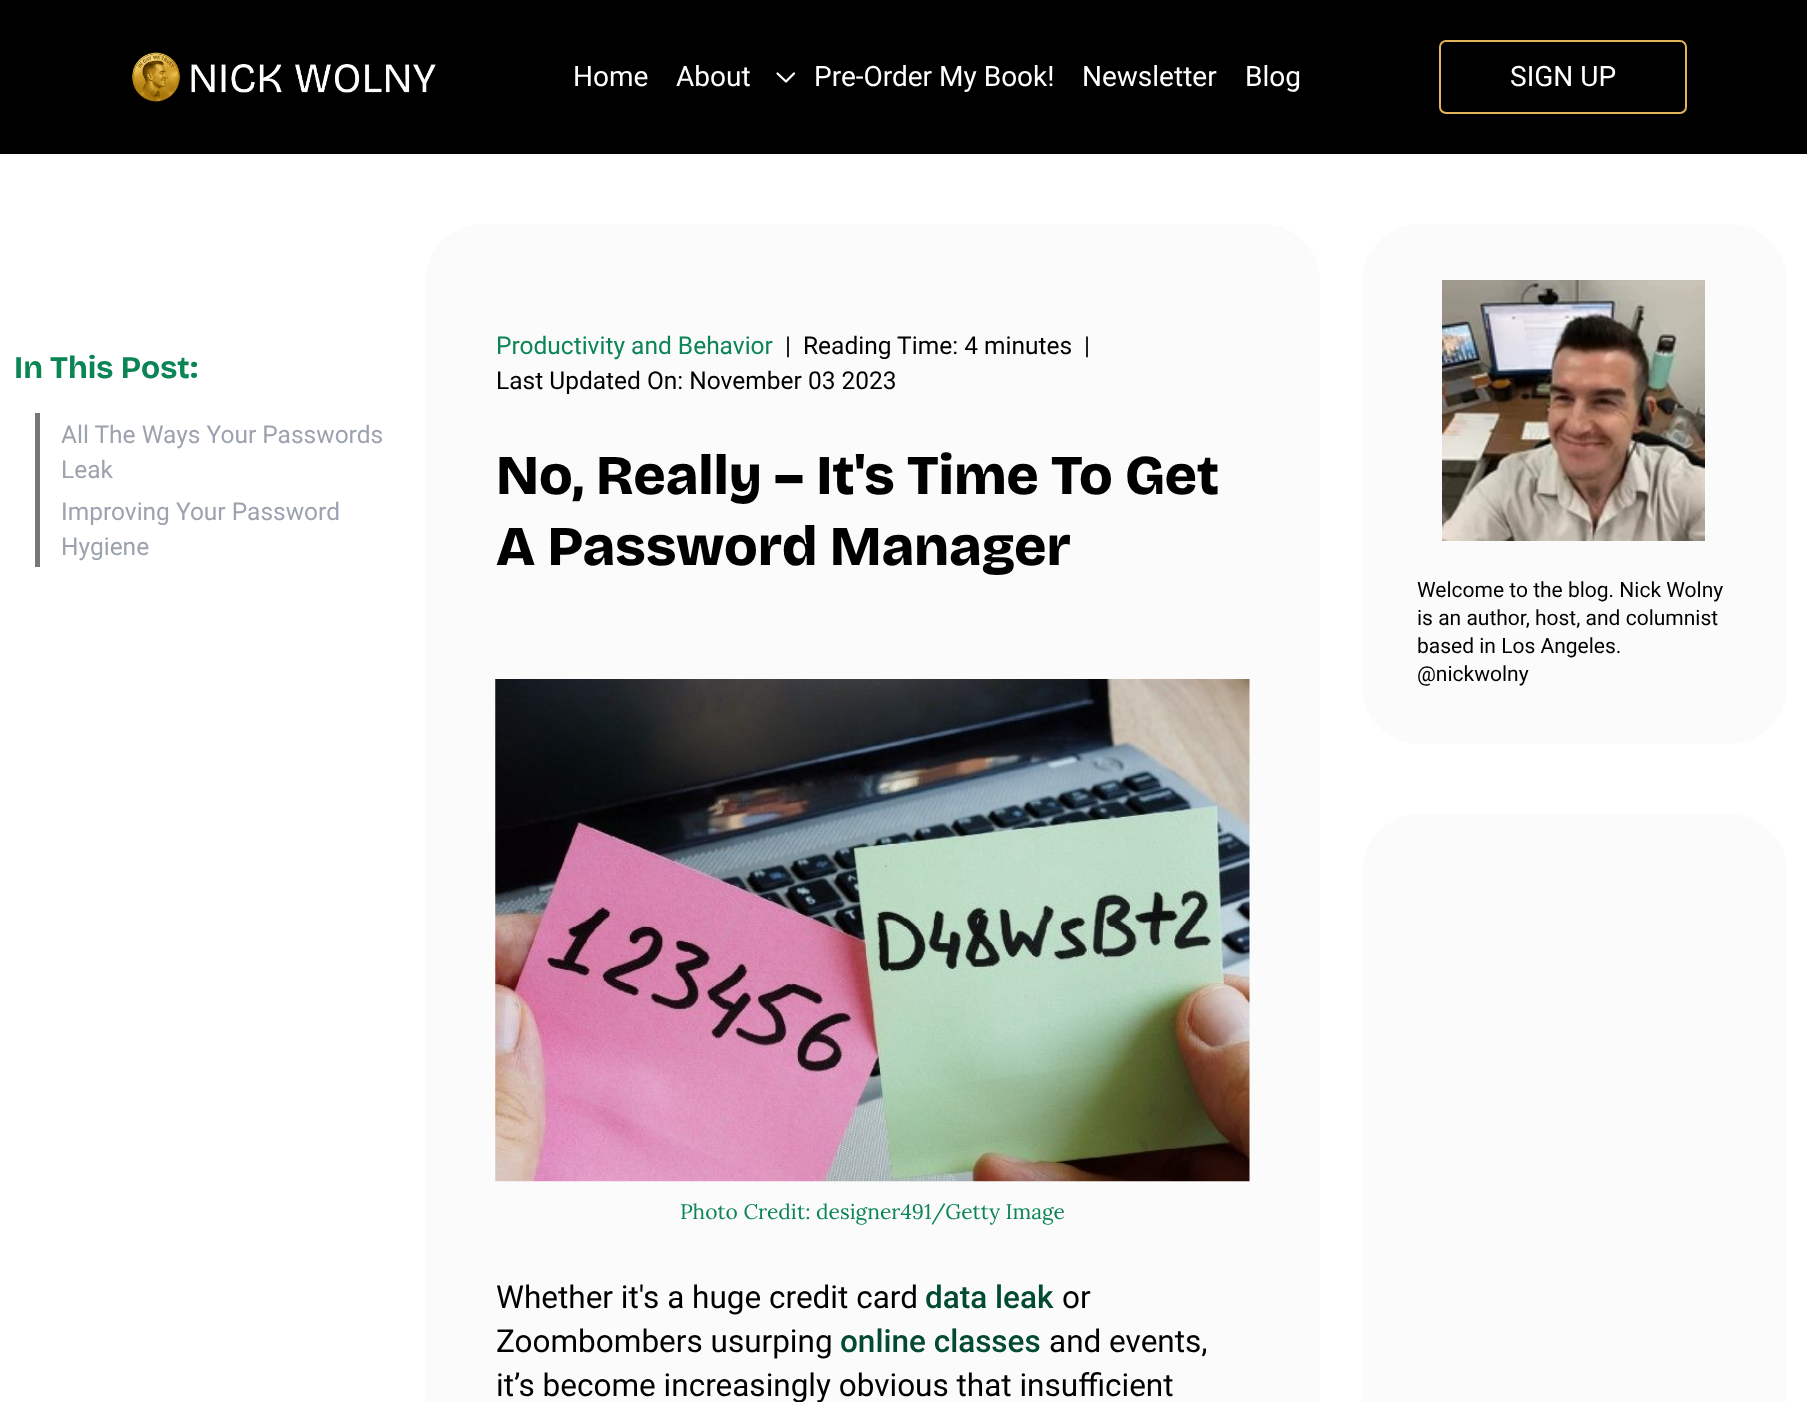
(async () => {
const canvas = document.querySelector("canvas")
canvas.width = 1807
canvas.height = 1402
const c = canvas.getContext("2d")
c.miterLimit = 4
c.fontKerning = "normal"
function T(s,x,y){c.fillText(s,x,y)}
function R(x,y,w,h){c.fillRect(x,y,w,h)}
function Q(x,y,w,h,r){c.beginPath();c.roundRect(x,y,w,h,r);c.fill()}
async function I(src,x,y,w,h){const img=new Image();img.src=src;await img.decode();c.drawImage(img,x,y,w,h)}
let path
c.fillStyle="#fff"
R(0,0,1807,1402)
c.fillStyle="#000"
R(0,0,1807,154)
await I("1.png",132,52,304,50)
c.font="28px Roboto"
c.fillStyle="#fff"
T("Home",573,86)
T("About",676,86)
path = new Path2D("M794 73.5l-8 8l-8.5-8")
c.strokeStyle="#fff"
c.lineWidth=2.3
c.lineCap="round"
c.lineJoin="round"
c.stroke(path)
T("Pre-Order My Book!",814,86)
T("Newsletter",1082,86)
T("Blog",1245,86)
c.beginPath()
c.roundRect(1440,41,246,72,6)
c.strokeStyle="#e4b45a"
c.lineWidth=2
c.lineJoin="miter"
c.stroke()
T("SIGN UP",1510,86)
c.font="bold 31.5px Bricolage Grotesque"
c.fillStyle="#0c8555"
T("In This Post:",14,378)
c.fillStyle="#777"
R(35,413,5,154)
c.font="24.5px Roboto"
c.fillStyle="#9ca3af"
T("All The Ways Your Passwords",61,443)
T("Leak",61,478)
T("Improving Your Password",61,520)
T("Hygiene",61,555)
c.fillStyle="#fbfbfb"
path = new Path2D("M483 224h779c32 0 58 26 58 58v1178h-895v-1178c0-32 26-58 58-58z")
c.fill(path)
c.fillStyle="#0c8555"
T("Productivity and Behavior",496,354)
c.fillStyle="#000"
T("|",785,354)
T("Reading Time: 4 minutes",803,354)
T("|",1084,354)
T("Last Updated On: November 03 2023",496,389)
c.font="800 56px Bricolage Grotesque"
T("No, Really – It's Time To Get",496,494)
T("A Password Manager",496,565)
await I("2.png",495,679,755,503)
c.font="21px Lora"
c.fillStyle="#0c8555"
T("Photo Credit: designer491/Getty Image",680,1219)
c.font="31.5px Roboto"
c.fillStyle="#000"
T("Whether it's a huge credit card",496,1308)
c.font="500 31.5px Roboto"
c.fillStyle="#034a32"
T("data leak",925,1308)
c.font="31.5px Roboto"
c.fillStyle="#000"
T("or",1062,1308)
T("Zoombombers usurping",496,1352)
c.font="500 31.5px Roboto"
c.fillStyle="#034a32"
T("online classes",840,1352)
c.font="31.5px Roboto"
c.fillStyle="#000"
T("and events,",1049,1352)
T("it’s become increasingly obvious that insufficient",496,1396)
c.fillStyle="#fbfbfb"
Q(1362,224,425,520,58)
await I("3.png",1442,280,263,261)
c.font="21px Roboto"
c.fillStyle="#000"
T("Welcome to the blog. Nick Wolny",1417,597)
T("is an author, host, and columnist",1417,625)
T("based in Los Angeles.",1417,653)
T("@nickwolny",1417,681)
c.fillStyle="#fbfbfb"
Q(1362,814,425,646,58)
})()
